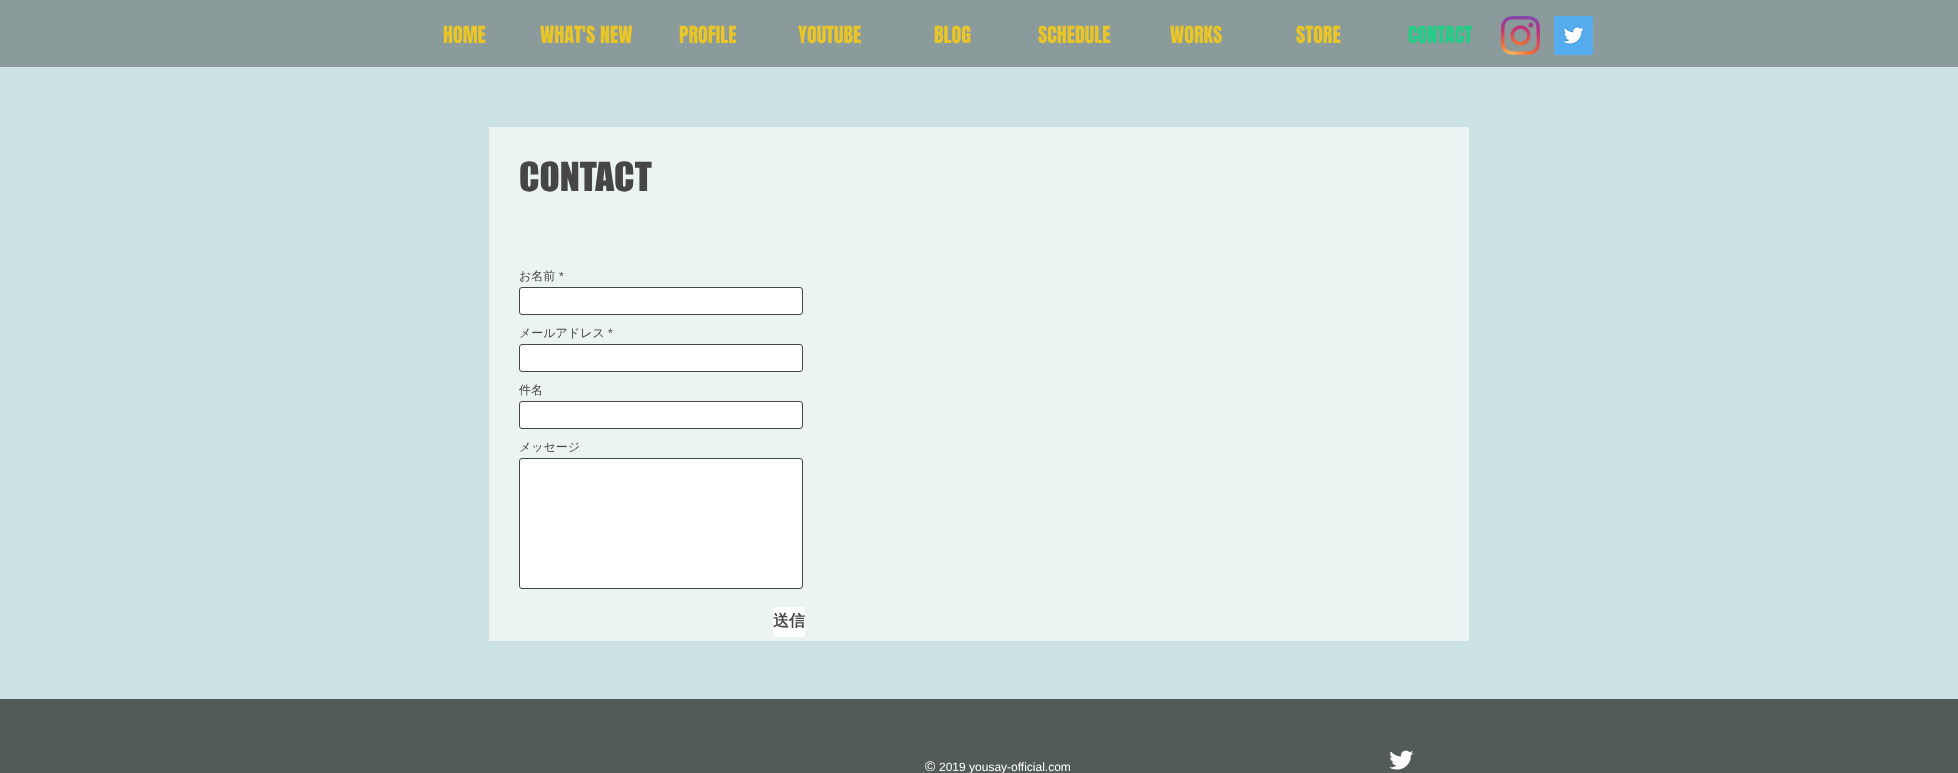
(async () => {
const canvas = document.querySelector("canvas")
canvas.width = 1958
canvas.height = 773
const c = canvas.getContext("2d")
c.miterLimit = 4
c.fontKerning = "normal"
function T(s,x,y){c.fillText(s,x,y)}
function R(x,y,w,h){c.fillRect(x,y,w,h)}
function Q(x,y,w,h,r){c.beginPath();c.roundRect(x,y,w,h,r);c.fill()}
async function I(src,x,y,w,h){const img=new Image();img.src=src;await img.decode();c.drawImage(img,x,y,w,h)}
c.fillStyle="#cce2e2"
R(0,0,1958,773)
c.fillStyle="#8b9a9a"
R(0,0,1958,67)
c.font="20px Anton"
c.fillStyle="#e8c529"
T("HOME",443,43)
T("WHAT'S NEW",540,43)
T("PROFILE",679,43)
T("YOUTUBE",798,43)
T("BLOG",934,43)
T("SCHEDULE",1038,43)
T("WORKS",1170,43)
T("STORE",1296,43)
c.fillStyle="#20ce88"
T("CONTACT",1408,43)
await I("1.png",1501,16,39,39)
await I("2.png",1554,16,39,39)
c.fillStyle="#ebf3f3"
R(489,127,980,514)
c.font="37px 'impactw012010'"
c.fillStyle="#464646"
T("CONTACT",519,191)
c.font="500 12px WenQuanYi Zen Hei"
T("お名前",519,280)
c.font="12px Liberation Sans"
T("*",559,280)
c.fillStyle="#fff"
c.beginPath()
c.roundRect(519.5,287.5,283,27,2.5)
c.fill()
c.strokeStyle="#464646"
c.stroke()
c.font="500 12px WenQuanYi Zen Hei"
c.fillStyle="#464646"
T("メールアドレス",519,337)
c.font="12px Liberation Sans"
T("*",608,337)
c.fillStyle="#fff"
c.beginPath()
c.roundRect(519.5,344.5,283,27,2.5)
c.fill()
c.stroke()
c.font="500 12px WenQuanYi Zen Hei"
c.fillStyle="#464646"
T("件名",519,394)
c.fillStyle="#fff"
c.beginPath()
c.roundRect(519.5,401.5,283,27,2.5)
c.fill()
c.stroke()
c.fillStyle="#464646"
T("メッセージ",519,451)
c.fillStyle="#fff"
c.beginPath()
c.roundRect(519.5,458.5,283,130,2.5)
c.fill()
c.stroke()
Q(773,607,32,30,3)
c.font="bold 16px WenQuanYi Zen Hei"
c.fillStyle="#464646"
T("送信",773,626)
c.fillStyle="#525a5a"
R(0,699,1958,74)
c.font="14px Liberation Sans"
c.fillStyle="#fff"
T("©",925,771)
c.font="12px Liberation Sans"
T("2019 yousay-official.com",939,771)
await I("3.png",1389,750,25,20)
})()
